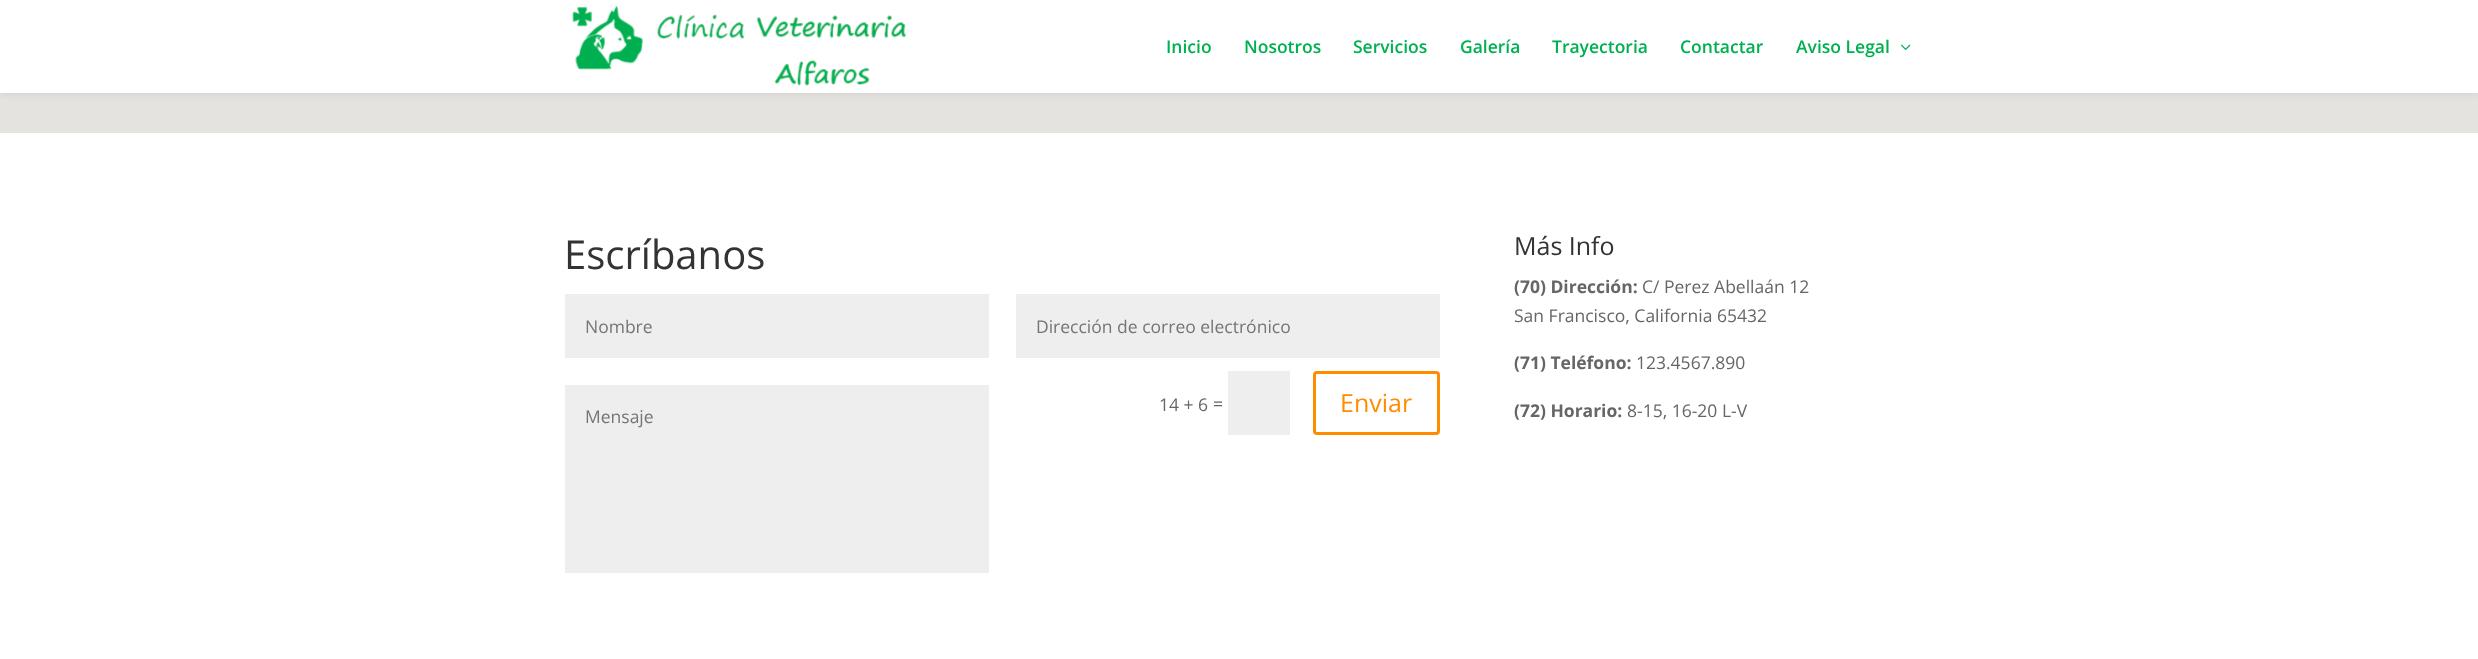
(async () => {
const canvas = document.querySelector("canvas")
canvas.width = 2478
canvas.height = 659
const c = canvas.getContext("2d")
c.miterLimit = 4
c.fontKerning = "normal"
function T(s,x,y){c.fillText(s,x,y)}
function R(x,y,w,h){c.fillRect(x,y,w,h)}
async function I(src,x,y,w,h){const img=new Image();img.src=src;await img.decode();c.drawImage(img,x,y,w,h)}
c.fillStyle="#fff"
R(0,0,2478,659)
c.fillStyle="#e5e3df"
R(0,93,2478,40)
c.fillStyle="#0000001a"
c.filter="blur(4.5px)"
c.beginPath()
c.rect(0,0,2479,93)
c.fill()
c.filter="none"
c.fillStyle="#fff"
R(0,0,2478,93)
await I("1.png",572,5,334,81)
c.font="600 17.5px Open Sans"
c.fillStyle="#00b050"
T("Inicio",1166,53)
T("Nosotros",1244,53)
T("Servicios",1353,53)
T("Galería",1460,53)
T("Trayectoria",1552,53)
T("Contactar",1680,53)
T("Aviso Legal",1796,53)
await I("2.png",1901,44,10,6)
c.font="40px Open Sans"
c.fillStyle="#333"
T("Escríbanos",564,269)
c.fillStyle="#eee"
R(565,294,424,64)
c.font="17.5px Open Sans"
c.fillStyle="#757575"
T("Nombre",585,333)
c.fillStyle="#eee"
R(1016,294,424,64)
c.fillStyle="#757575"
T("Dirección de correo electrónico",1036,333)
c.fillStyle="#666"
T("14 + 6",1159,411)
T("=",1213,410)
c.fillStyle="#eee"
R(1228,371,62,64)
c.beginPath()
c.roundRect(1314.5,372.5,124,61,2.5)
c.strokeStyle="#ff8c00"
c.lineWidth=3
c.stroke()
c.font="25px Open Sans"
c.fillStyle="#ff8c00"
T("Enviar",1340,412)
c.fillStyle="#eee"
R(565,385,424,188)
c.font="17.5px Open Sans"
c.fillStyle="#757575"
T("Mensaje",585,423)
c.font="25px Open Sans"
c.fillStyle="#333"
T("Más Info",1514,255)
c.font="bold 17.5px Open Sans"
c.fillStyle="#666"
T("(70) Dirección:",1514,293)
c.font="17.5px Open Sans"
T("C/ Perez Abellaán 12",1642,293)
T("San Francisco, California 65432",1514,322)
c.font="bold 17.5px Open Sans"
T("(71) Teléfono:",1514,369)
c.font="17.5px Open Sans"
T("123.4567.890",1636,369)
c.font="bold 17.5px Open Sans"
T("(72) Horario:",1514,417)
c.font="17.5px Open Sans"
T("8-15, 16-20 L-V",1627,417)
})()
